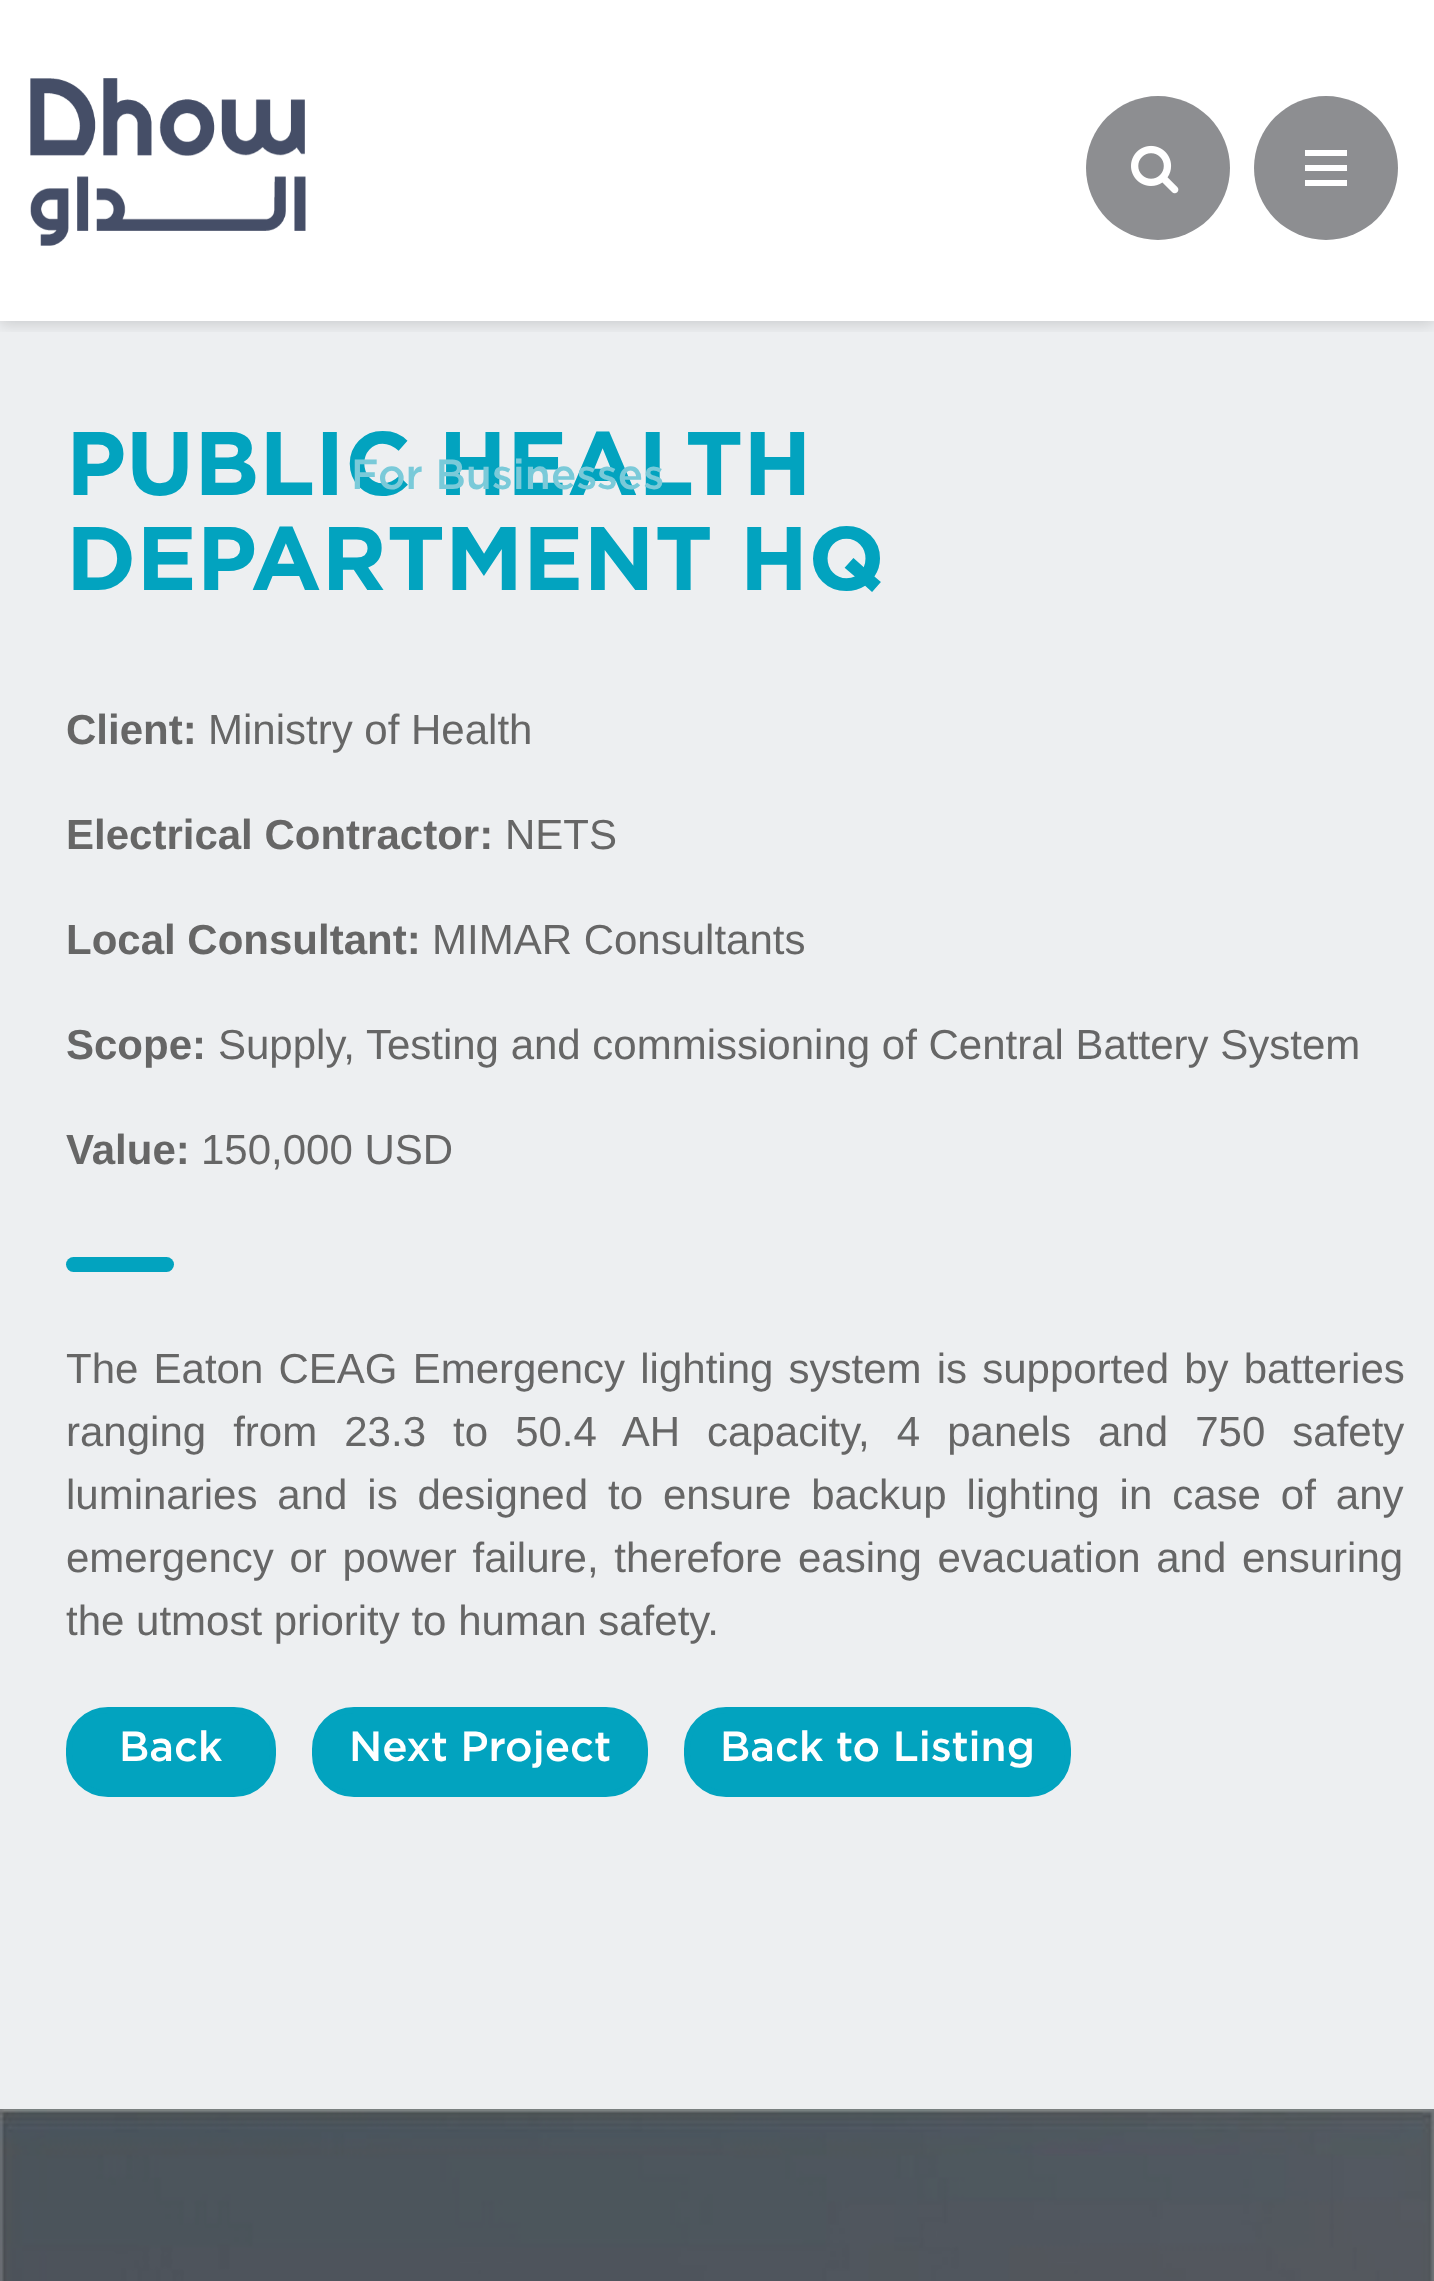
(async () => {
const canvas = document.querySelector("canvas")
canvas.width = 1434
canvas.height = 2281
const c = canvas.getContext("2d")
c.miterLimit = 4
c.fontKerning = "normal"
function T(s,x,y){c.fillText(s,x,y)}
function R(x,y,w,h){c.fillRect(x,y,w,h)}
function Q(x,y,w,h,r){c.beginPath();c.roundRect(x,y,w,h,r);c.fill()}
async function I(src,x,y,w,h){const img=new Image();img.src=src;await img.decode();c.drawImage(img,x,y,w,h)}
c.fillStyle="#fff"
R(0,0,1434,2281)
c.fillStyle="#edeff1"
R(0,321,1434,1788)
c.fillStyle="#777879"
R(1433,2109,1,172)
c.font="bold 90px Gotham"
c.fillStyle="#02a3bf"
T("PUBLIC HEALTH",66,495)
T("DEPARTMENT HQ",66,590)
c.font="bold 42px Liberation Sans"
c.fillStyle="#666"
T("Client:",66,744)
c.font="42px Liberation Sans"
T("Ministry of Health",208,744)
c.font="bold 42px Liberation Sans"
T("Electrical Contractor:",66,849)
c.font="42px Liberation Sans"
T("NETS",505,849)
c.font="bold 42px Liberation Sans"
T("Local Consultant:",66,954)
c.font="42px Liberation Sans"
T("MIMAR Consultants",432,954)
c.font="bold 42px Liberation Sans"
T("Scope:",66,1059)
c.font="42px Liberation Sans"
T("Supply, Testing and commissioning of Central Battery System",218,1059)
c.font="bold 42px Liberation Sans"
T("Value:",66,1164)
c.font="42px Liberation Sans"
T("150,000 USD",201,1164)
c.fillStyle="#02a3bf"
Q(66,1257,108,15,7.5)
c.wordSpacing="3.5px"
c.fillStyle="#666"
T("The Eaton CEAG Emergency lighting system is supported by batteries",66,1383)
c.wordSpacing="15.4px"
T("ranging from 23.3 to 50.4 AH capacity, 4 panels and 750 safety",66,1446)
c.wordSpacing="8.25px"
T("luminaries and is designed to ensure backup lighting in case of any",66,1509)
c.wordSpacing="4px"
T("emergency or power failure, therefore easing evacuation and ensuring",66,1572)
c.wordSpacing="0px"
T("the utmost priority to human safety.",66,1635)
c.fillStyle="#02a3bf"
c.beginPath()
c.roundRect(69,1710,204,84,39)
c.fill()
c.strokeStyle="#02a3bf"
c.lineWidth=6
c.stroke()
c.font="500 42px Gotham"
c.fillStyle="#fff"
T("Back",119,1761)
c.fillStyle="#02a3bf"
c.beginPath()
c.roundRect(315,1710,330,84,39)
c.fill()
c.stroke()
c.fillStyle="#fff"
T("Next Project",349,1761)
c.fillStyle="#02a3bf"
c.beginPath()
c.roundRect(687,1710,381,84,39)
c.fill()
c.stroke()
c.fillStyle="#fff"
T("Back to Listing",720,1761)
await I("1.png",0,2109,1434,172)
c.save()
c.beginPath()
c.rect(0,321,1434,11)
c.clip()
c.fillStyle="#00000026"
c.filter="blur(7.5px)"
c.beginPath()
c.rect(0,3,1434,321)
c.fill()
c.filter="none"
c.restore()
await I("2.png",30,78,276,168)
c.fillStyle="#8d8e91"
c.beginPath()
c.arc(1158,168,72,0,7)
c.fill()
await I("3.png",1131,145,48,49)
c.beginPath()
c.arc(1326,168,72,0,7)
c.fill()
c.fillStyle="#fff"
R(1305,150,42,6)
R(1305,165,42,6)
R(1305,180,42,6)
c.fillStyle="#7acad9"
T("For Businesses",351,489)
})()
